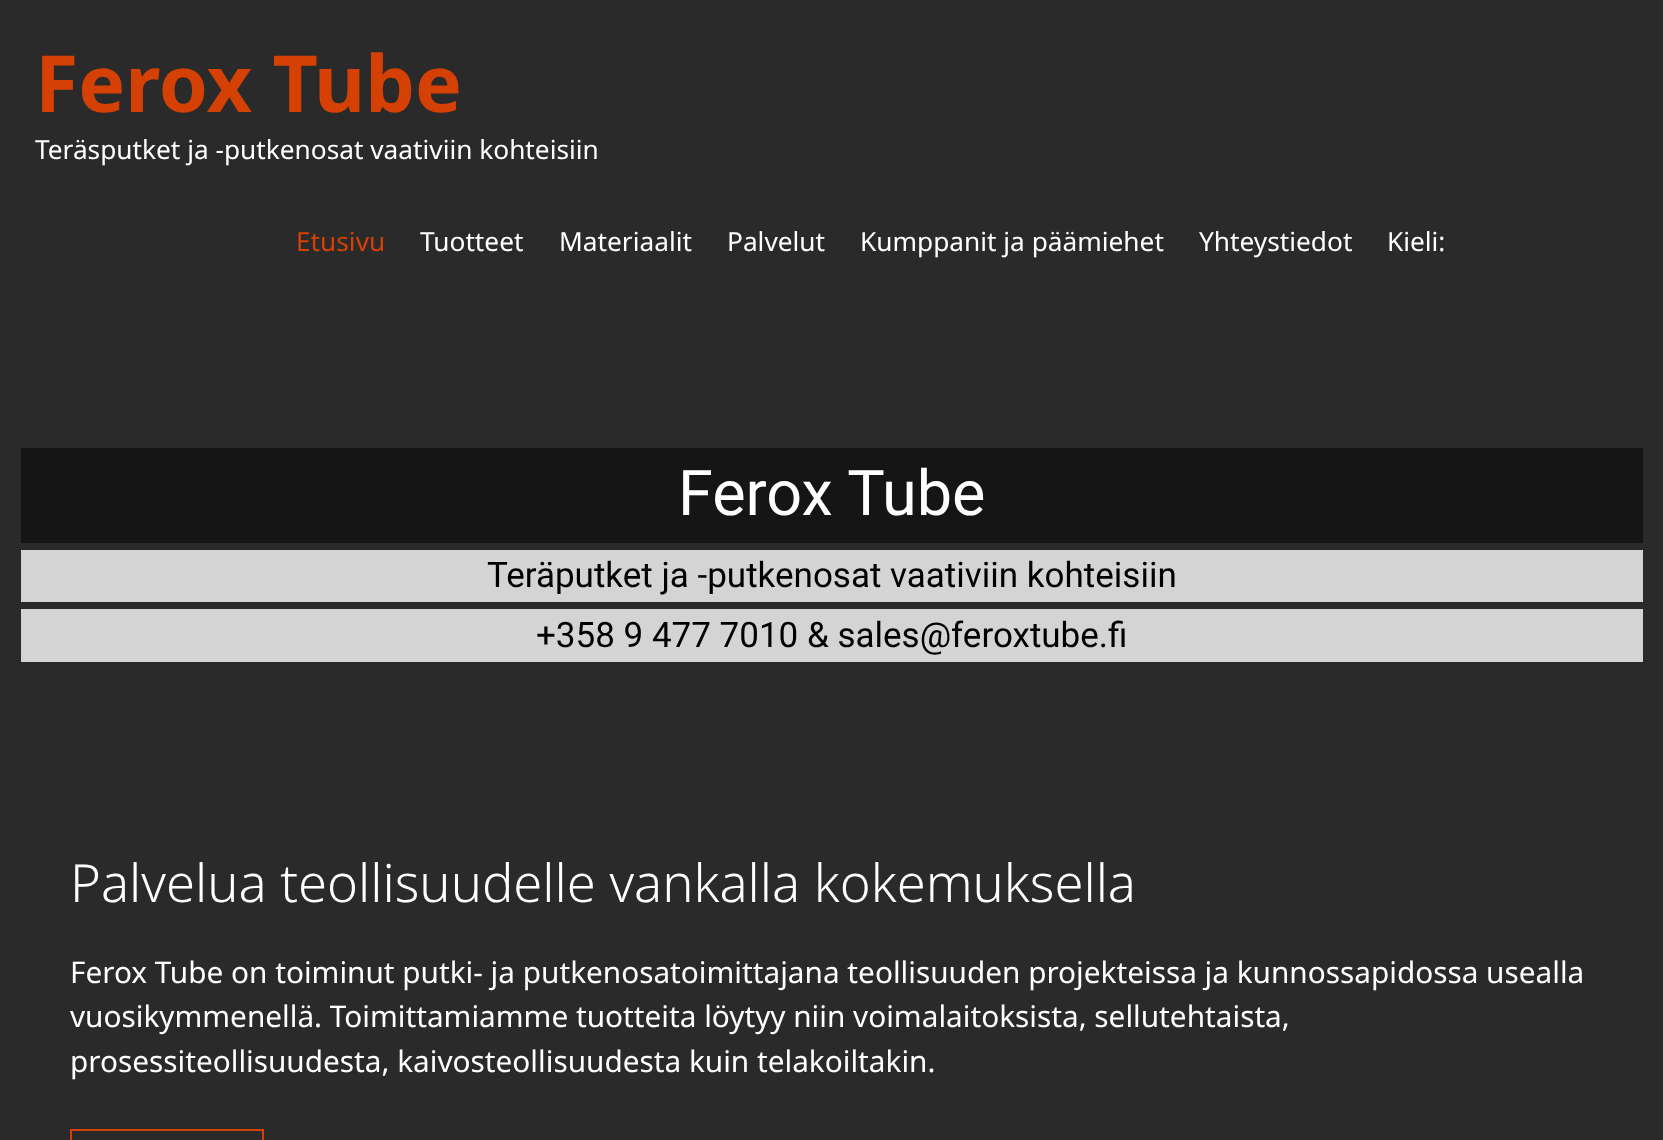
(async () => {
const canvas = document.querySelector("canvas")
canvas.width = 1663
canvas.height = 1140
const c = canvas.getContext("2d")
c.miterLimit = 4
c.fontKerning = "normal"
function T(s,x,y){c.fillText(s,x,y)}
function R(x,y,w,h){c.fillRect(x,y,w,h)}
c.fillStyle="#2a2a2a"
R(0,0,1663,1140)
c.font="bold 78.75px Noto Sans"
c.fillStyle="#d54005"
T("Ferox Tube",35,112)
c.font="26.25px Noto Sans"
c.fillStyle="#fff"
T("Teräsputket ja -putkenosat vaativiin kohteisiin",35,159)
c.fillStyle="#d54005"
T("Etusivu",296,251)
c.fillStyle="#fff"
T("Tuotteet",420,251)
T("Materiaalit",559,251)
T("Palvelut",727,251)
T("Kumppanit ja päämiehet",860,251)
T("Yhteystiedot",1199,251)
T("Kieli:",1387,251)
c.fillStyle="#151515"
R(21,448,1622,95)
c.font="63px Roboto"
c.fillStyle="#fff"
T("Ferox Tube",678,515)
c.fillStyle="#d4d4d4"
R(21,550,1622,52)
c.font="35px Roboto"
c.fillStyle="#000"
T("Teräputket ja -putkenosat vaativiin kohteisiin",487,587)
c.fillStyle="#d4d4d4"
R(21,609,1622,53)
c.fillStyle="#000"
T("+358 9 477 7010 & sales@feroxtube.fi",536,647)
c.font="300 52.5px Noto Sans"
c.fillStyle="#fff"
T("Palvelua teollisuudelle vankalla kokemuksella",70,902)
c.font="29.75px Noto Sans"
T("Ferox Tube on toiminut putki- ja putkenosatoimittajana teollisuuden projekteissa ja kunnossapidossa usealla",70,983)
T("vuosikymmenellä. Toimittamiamme tuotteita löytyy niin voimalaitoksista, sellutehtaista,",70,1027)
T("prosessiteollisuudesta, kaivosteollisuudesta kuin telakoiltakin.",70,1072)
c.strokeStyle="#d54005"
c.lineWidth=2
c.strokeRect(71,1130,192,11)
})()
